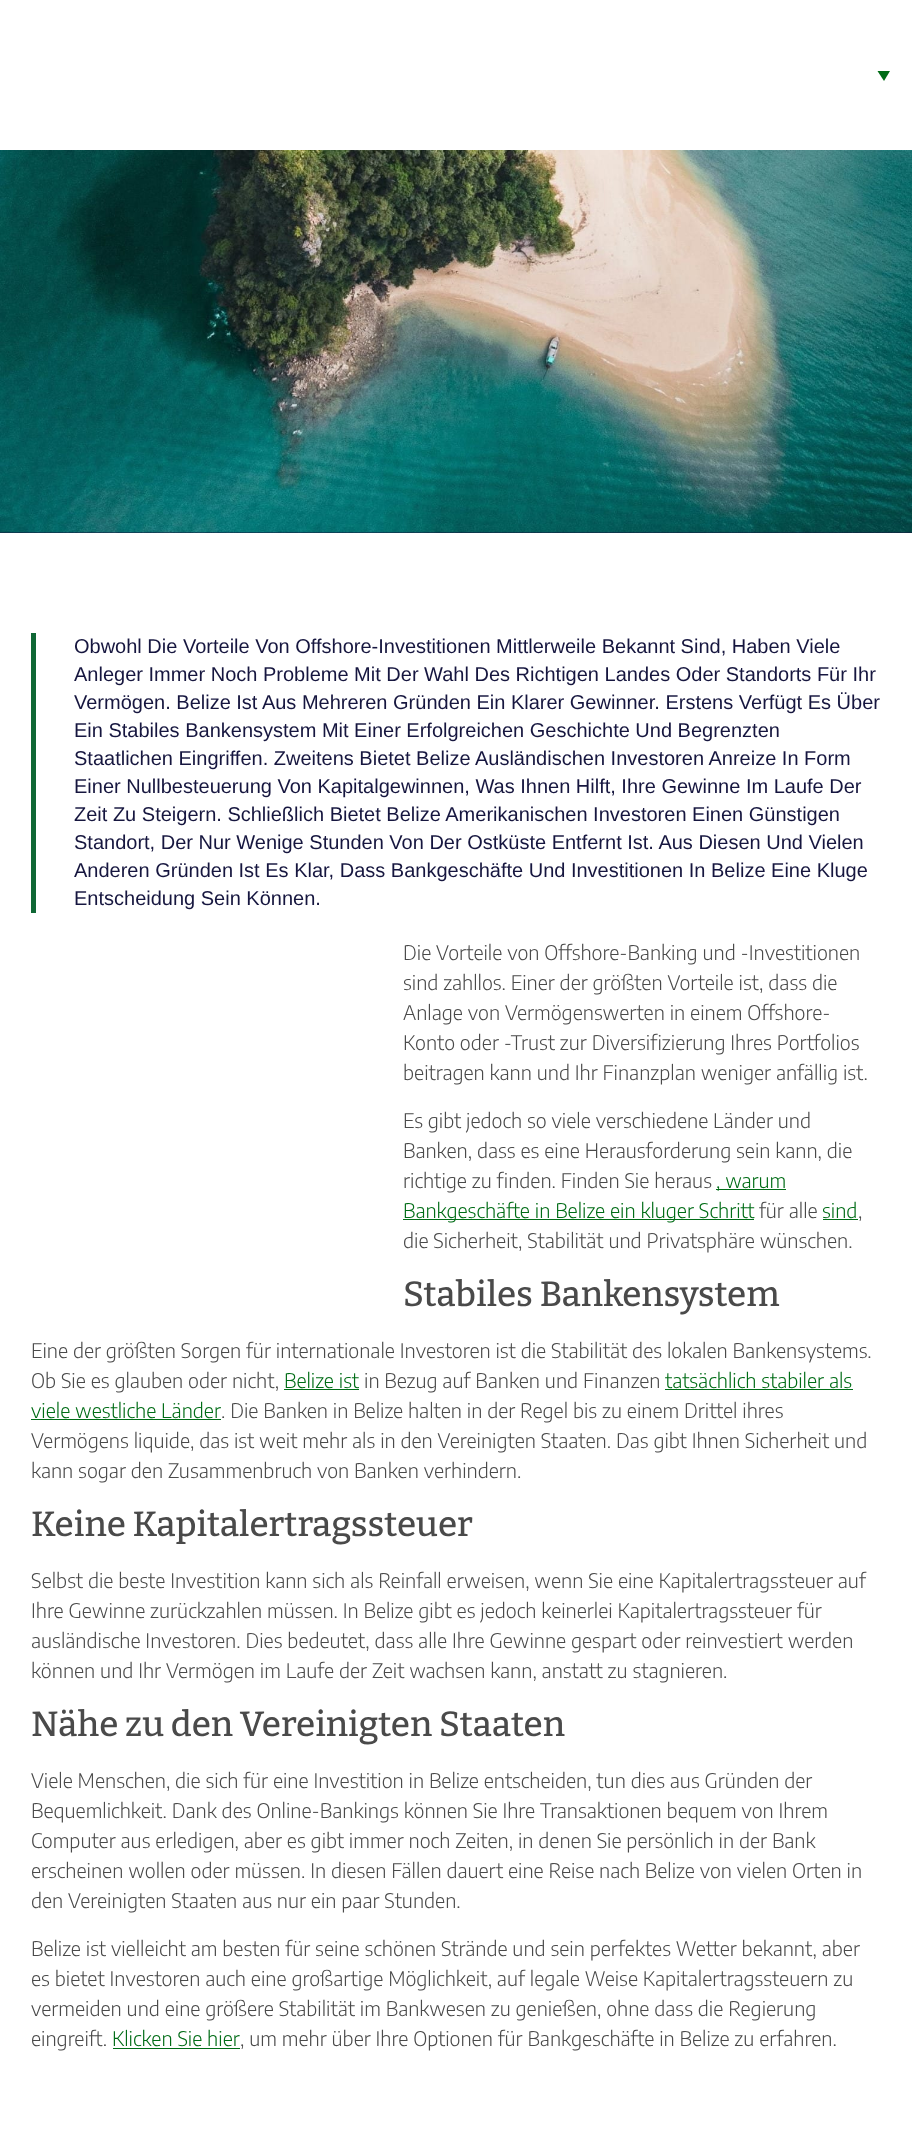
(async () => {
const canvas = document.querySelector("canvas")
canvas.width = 912
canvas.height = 2152
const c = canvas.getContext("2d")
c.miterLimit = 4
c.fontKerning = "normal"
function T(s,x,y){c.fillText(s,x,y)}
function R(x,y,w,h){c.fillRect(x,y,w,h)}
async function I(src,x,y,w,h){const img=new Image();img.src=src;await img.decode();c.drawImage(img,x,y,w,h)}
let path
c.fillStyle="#fff"
R(0,0,912,2152)
c.fillStyle="#006c16"
path = new Path2D("M877.5 71h12.5l-6 10z")
c.fill(path)
c.fillStyle="#16163f"
R(0,532,912,1)
await I("1.png",0,150,912,383)
c.fillStyle="#0f6735"
R(31,633,5,280)
c.font="20px Liberation Sans"
c.fillStyle="#16163f"
T("Obwohl Die Vorteile Von Offshore-Investitionen Mittlerweile Bekannt Sind, Haben Viele",74,653)
T("Anleger Immer Noch Probleme Mit Der Wahl Des Richtigen Landes Oder Standorts Für Ihr",74,681)
T("Vermögen. Belize Ist Aus Mehreren Gründen Ein Klarer Gewinner. Erstens Verfügt Es Über",74,709)
T("Ein Stabiles Bankensystem Mit Einer Erfolgreichen Geschichte Und Begrenzten",74,737)
T("Staatlichen Eingriffen. Zweitens Bietet Belize Ausländischen Investoren Anreize In Form",74,765)
T("Einer Nullbesteuerung Von Kapitalgewinnen, Was Ihnen Hilft, Ihre Gewinne Im Laufe Der",74,793)
T("Zeit Zu Steigern. Schließlich Bietet Belize Amerikanischen Investoren Einen Günstigen",74,821)
T("Standort, Der Nur Wenige Stunden Von Der Ostküste Entfernt Ist. Aus Diesen Und Vielen",74,849)
T("Anderen Gründen Ist Es Klar, Dass Bankgeschäfte Und Investitionen In Belize Eine Kluge",74,877)
T("Entscheidung Sein Können.",74,905)
c.font="300 20px Encode Sans"
c.fillStyle="#4a4a4a"
T("Die Vorteile von Offshore-Banking und -Investitionen",403,960)
T("sind zahllos. Einer der größten Vorteile ist, dass die",403,990)
T("Anlage von Vermögenswerten in einem Offshore-",403,1020)
T("Konto oder -Trust zur Diversifizierung Ihres Portfolios",403,1050)
T("beitragen kann und Ihr Finanzplan weniger anfällig ist.",403,1080)
T("Es gibt jedoch so viele verschiedene Länder und",403,1128)
T("Banken, dass es eine Herausforderung sein kann, die",403,1158)
T("richtige zu finden. Finden Sie heraus",403,1188)
c.fillStyle="#006c16"
R(716,1189,70,1)
T(", warum",716,1188)
R(403,1219,351,1)
T("Bankgeschäfte in Belize ein kluger Schritt",403,1218)
c.fillStyle="#4a4a4a"
T("für alle",759,1218)
c.fillStyle="#006c16"
T("sind",822,1218)
R(823,1219,35,1)
c.fillStyle="#4a4a4a"
T(",",858,1218)
T("die Sicherheit, Stabilität und Privatsphäre wünschen.",403,1248)
c.font="500 35px Bitter"
T("Stabiles Bankensystem",403,1306)
c.font="300 20px Encode Sans"
T("Eine der größten Sorgen für internationale Investoren ist die Stabilität des lokalen Bankensystems.",31,1358)
T("Ob Sie es glauben oder nicht,",31,1388)
c.fillStyle="#006c16"
T("Belize ist",284,1388)
R(284,1389,75,1)
c.fillStyle="#4a4a4a"
T("in Bezug auf Banken und Finanzen",364,1388)
c.fillStyle="#006c16"
T("tatsächlich stabiler als",665,1388)
R(665,1389,188,1)
T("viele westliche Länder",31,1418)
R(31,1419,190,1)
c.fillStyle="#4a4a4a"
T(". Die Banken in Belize halten in der Regel bis zu einem Drittel ihres",221,1418)
T("Vermögens liquide, das ist weit mehr als in den Vereinigten Staaten. Das gibt Ihnen Sicherheit und",31,1448)
T("kann sogar den Zusammenbruch von Banken verhindern.",31,1478)
c.font="500 35px Bitter"
T("Keine Kapitalertragssteuer",31,1536)
c.font="300 20px Encode Sans"
T("Selbst die beste Investition kann sich als Reinfall erweisen, wenn Sie eine Kapitalertragssteuer auf",31,1588)
T("Ihre Gewinne zurückzahlen müssen. In Belize gibt es jedoch keinerlei Kapitalertragssteuer für",31,1618)
T("ausländische Investoren. Dies bedeutet, dass alle Ihre Gewinne gespart oder reinvestiert werden",31,1648)
T("können und Ihr Vermögen im Laufe der Zeit wachsen kann, anstatt zu stagnieren.",31,1678)
c.font="500 35px Bitter"
T("Nähe zu den Vereinigten Staaten",31,1736)
c.font="300 20px Encode Sans"
T("Viele Menschen, die sich für eine Investition in Belize entscheiden, tun dies aus Gründen der",31,1788)
T("Bequemlichkeit. Dank des Online-Bankings können Sie Ihre Transaktionen bequem von Ihrem",31,1818)
T("Computer aus erledigen, aber es gibt immer noch Zeiten, in denen Sie persönlich in der Bank",31,1848)
T("erscheinen wollen oder müssen. In diesen Fällen dauert eine Reise nach Belize von vielen Orten in",31,1878)
T("den Vereinigten Staaten aus nur ein paar Stunden.",31,1908)
T("Belize ist vielleicht am besten für seine schönen Strände und sein perfektes Wetter bekannt, aber",31,1956)
T("es bietet Investoren auch eine großartige Möglichkeit, auf legale Weise Kapitalertragssteuern zu",31,1986)
T("vermeiden und eine größere Stabilität im Bankwesen zu genießen, ohne dass die Regierung",31,2016)
T("eingreift.",31,2046)
c.fillStyle="#006c16"
T("Klicken Sie hier",112,2046)
R(113,2048,127,1)
c.fillStyle="#4a4a4a"
T(", um mehr über Ihre Optionen für Bankgeschäfte in Belize zu erfahren.",240,2046)
})()
